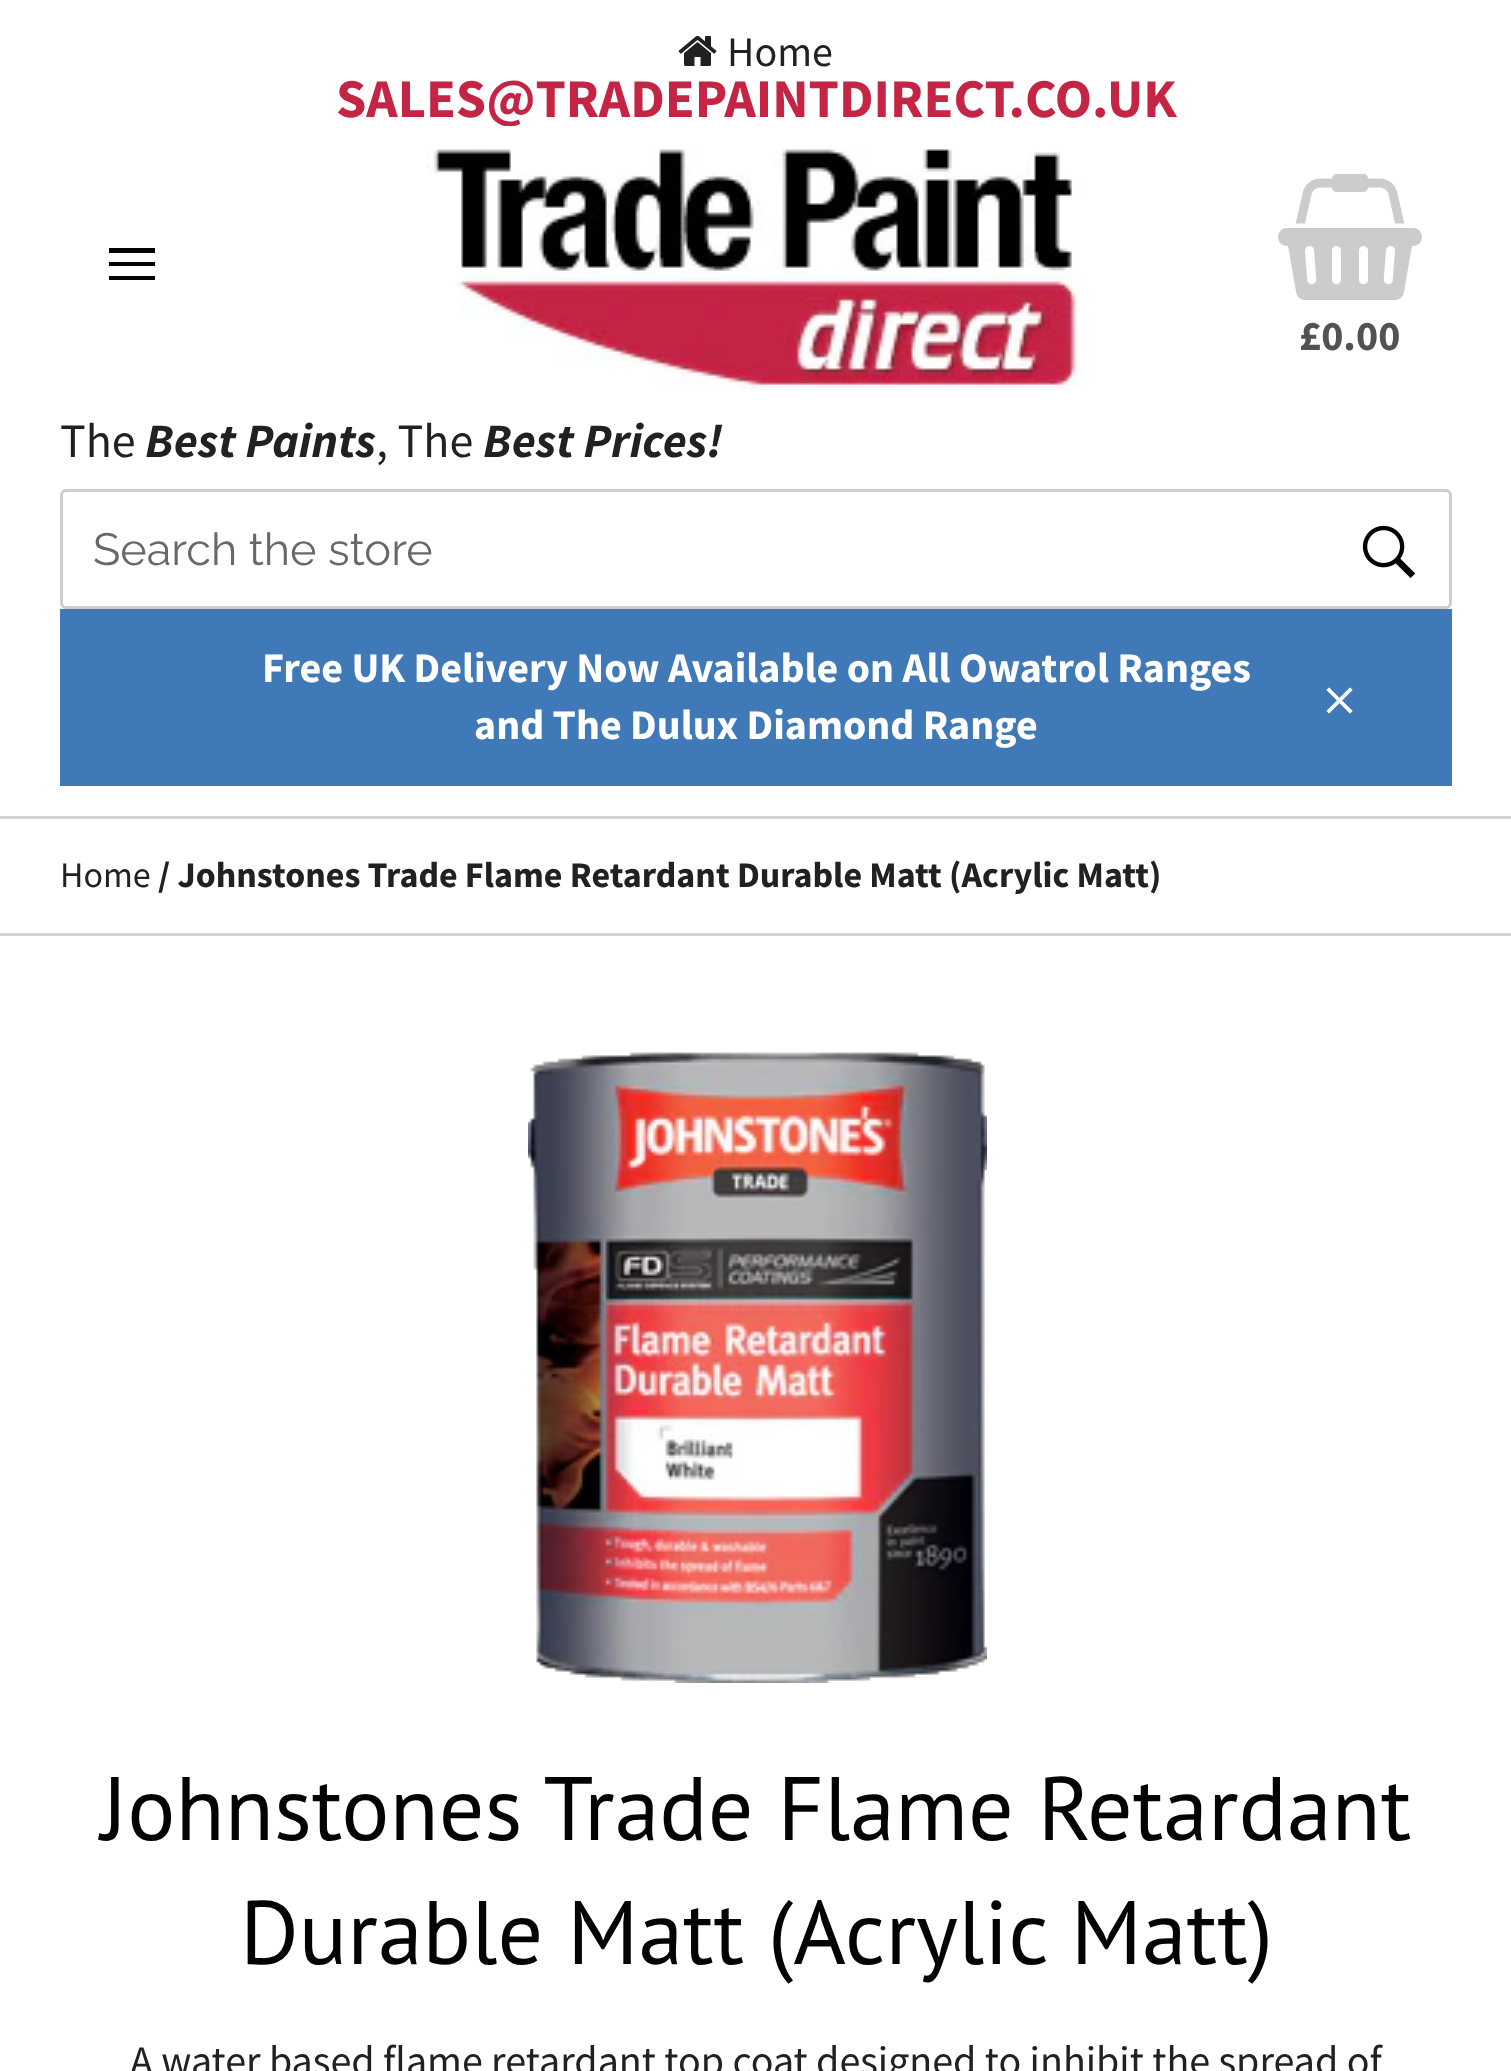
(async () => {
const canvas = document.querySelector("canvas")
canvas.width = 1511
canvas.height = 2071
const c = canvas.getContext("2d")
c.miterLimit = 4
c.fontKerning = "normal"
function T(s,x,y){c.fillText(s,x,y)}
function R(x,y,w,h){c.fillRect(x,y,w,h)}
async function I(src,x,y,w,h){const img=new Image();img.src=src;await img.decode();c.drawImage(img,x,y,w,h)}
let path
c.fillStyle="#fff"
R(0,0,1511,2071)
await I("1.png",678,35,39,31)
c.font="42px Source Sans Pro"
c.fillStyle="#222121"
T("Home",727,66)
c.font="bold 54.6px Source Sans Pro"
c.fillStyle="#c42545"
T("SALES@TRADEPAINTDIRECT.CO.UK",336,117)
c.fillStyle="#030303"
path = new Path2D("M109 262h46v4h-46zm0-14h46v5h-46zm0 28h46v4h-46z")
c.fill(path)
await I("2.png",426,126,660,265)
await I("3.png",1278,174,144,126)
c.font="bold 42px Source Sans Pro"
c.fillStyle="#525252"
T("£0.00",1299,350)
c.font="48px Source Sans Pro"
c.fillStyle="#222121"
T("The",60,457)
c.font="italic bold 48px Source Sans Pro"
T("Best Paints",145,457)
c.font="48px Source Sans Pro"
T(", The",376,457)
c.font="italic bold 48px Source Sans Pro"
T("Best Prices!",483,457)
c.beginPath()
c.roundRect(61.5,490.5,1389,117,4.5)
c.strokeStyle="#cecece"
c.lineWidth=3
c.stroke()
c.font="100 45px Raleway"
c.fillStyle="#686868"
T("Search the store",93,565)
await I("4.png",1362,525,53,53)
c.fillStyle="#4079b8"
R(60,609,1392,177)
c.font="bold 42px Source Sans Pro"
c.fillStyle="#fff"
T("Free UK Delivery Now Available on All Owatrol Ranges",262,682)
T("and The Dulux Diamond Range",474,739)
await I("5.png",1326,687,27,27)
c.fillStyle="#d3d3d3"
R(0,816,1511,3)
R(0,933,1511,3)
c.font="36px Source Sans Pro"
c.fillStyle="#222121"
T("Home",60,887)
c.font="bold 36px Source Sans Pro"
T("/ Johnstones Trade Flame Retardant Durable Matt (Acrylic Matt)",158,887)
await I("6.png",528,1052,459,631)
c.font="90px PT Sans"
c.fillStyle="#030303"
T("Johnstones Trade Flame Retardant",101,1840)
T("Durable Matt (Acrylic Matt)",240,1964)
c.font="42px Source Sans Pro"
c.fillStyle="#222121"
T("A water based flame retardant top coat designed to inhibit the spread of",130,2075)
})()
